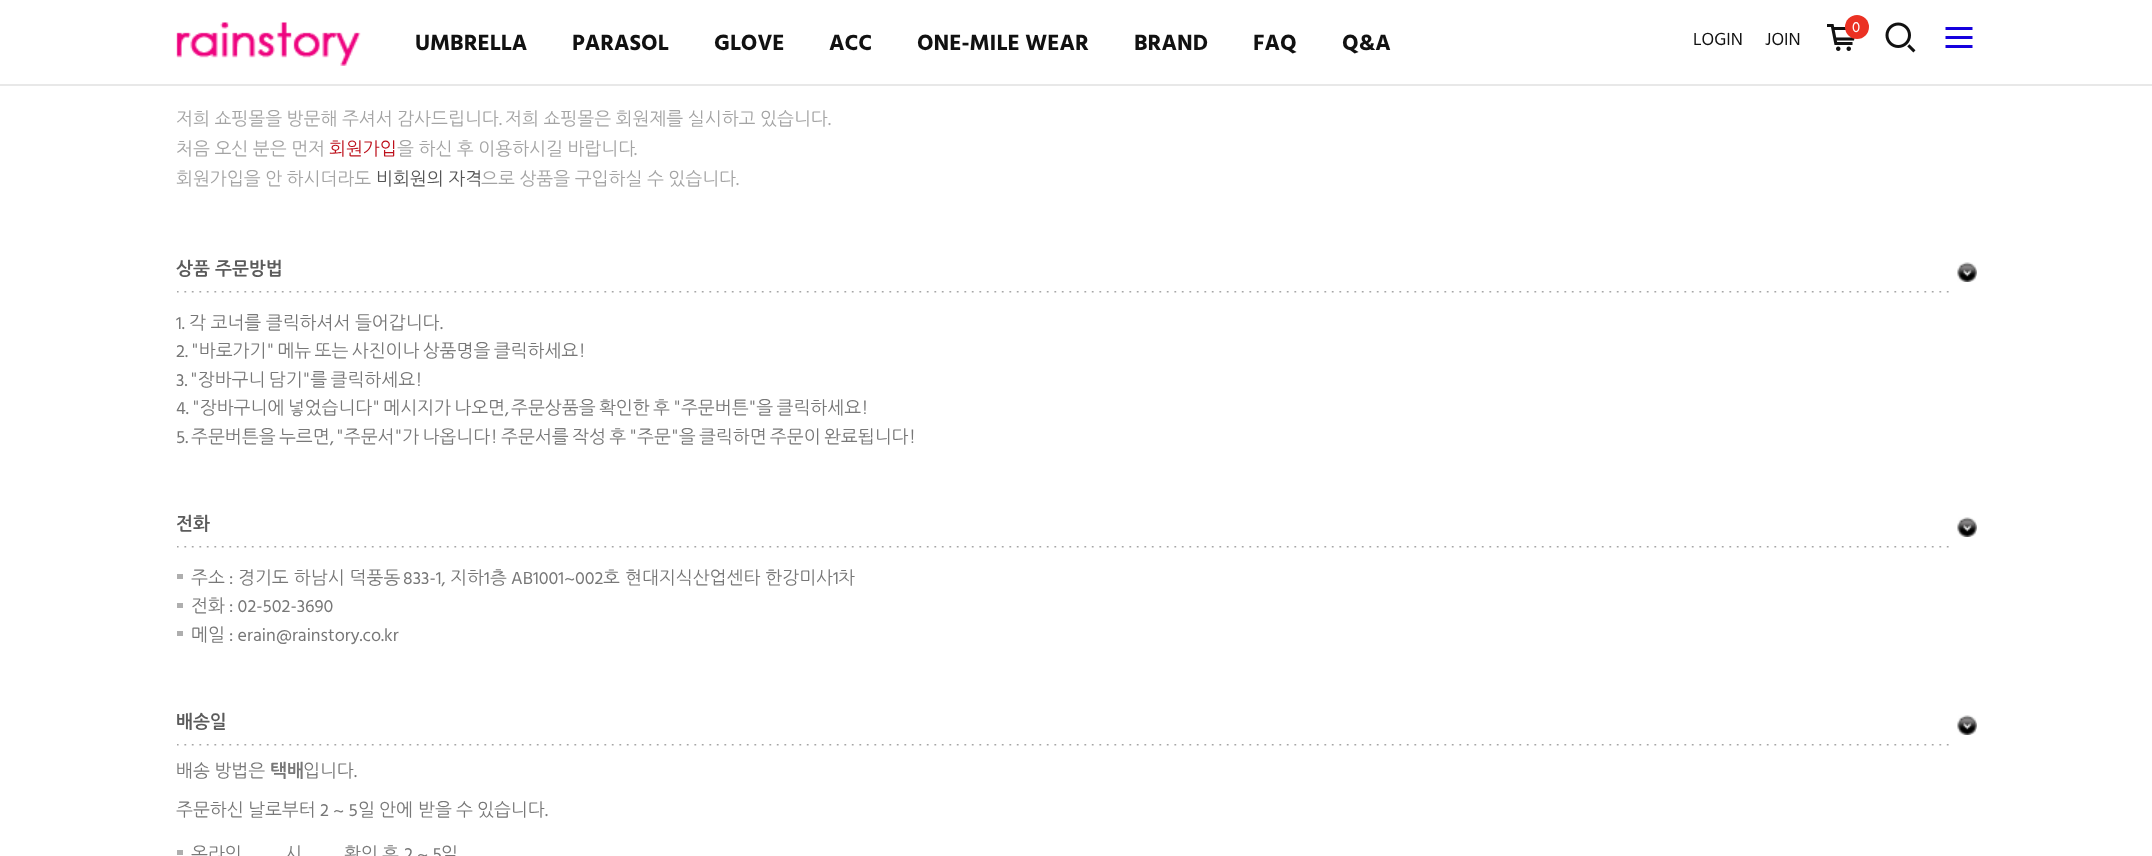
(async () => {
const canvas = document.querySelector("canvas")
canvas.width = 2152
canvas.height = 856
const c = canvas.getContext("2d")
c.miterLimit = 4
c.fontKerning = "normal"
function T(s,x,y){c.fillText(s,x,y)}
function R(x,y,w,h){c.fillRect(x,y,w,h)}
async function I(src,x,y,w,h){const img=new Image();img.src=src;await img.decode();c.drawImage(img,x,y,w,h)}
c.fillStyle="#fff"
R(0,0,2152,856)
c.fillStyle="#e8e8e8"
R(0,84,2152,2)
await I("1.png",176,22,185,44)
c.font="bold 22.5px Hind"
c.fillStyle="#111"
T("UMBRELLA",415,50)
T("PARASOL",572,50)
T("GLOVE",714,50)
T("ACC",829,50)
T("ONE-MILE WEAR",917,50)
T("BRAND",1134,50)
T("FAQ",1253,50)
T("Q&A",1342,50)
c.font="18px Hind"
T("LOGIN",1693,45)
T("JOIN",1765,45)
await I("2.png",1827,24,28,27)
c.fillStyle="#eb3123"
c.beginPath()
c.arc(1857,27,12,0,7)
c.fill()
c.font="15px Hind"
c.fillStyle="#fff"
T("0",1852,32)
await I("3.png",1885,22,31,31)
await I("4.png",1945,27,28,21)
c.wordSpacing="-0.5px"
c.font="18px NanumGothic"
c.fillStyle="#a4a4a4"
T("저희 쇼핑몰을 방문해 주셔서 감사드립니다",176,125)
c.wordSpacing="0px"
c.font="18px Hind"
T(".",499,125)
c.wordSpacing="-0.5px"
c.font="18px NanumGothic"
T("저희 쇼핑몰은 회원제를 실시하고 있습니다",505,125)
c.wordSpacing="0px"
c.font="18px Hind"
T(".",828,125)
c.wordSpacing="-0.5px"
c.font="18px NanumGothic"
T("처음 오신 분은 먼저",176,155)
c.wordSpacing="0px"
c.fillStyle="#bd101b"
T("회원가입",329,155)
c.wordSpacing="-0.5px"
c.fillStyle="#a4a4a4"
T("을 하신 후 이용하시길 바랍니다",397,155)
c.wordSpacing="0px"
c.font="18px Hind"
T(".",634,155)
c.wordSpacing="-0.5px"
c.font="18px NanumGothic"
T("회원가입을 안 하시더라도",176,185)
c.fillStyle="#545454"
T("비회원의 자격",376,185)
c.fillStyle="#a4a4a4"
T("으로 상품을 구입하실 수 있습니다",481,185)
c.wordSpacing="0px"
c.font="18px Hind"
T(".",736,185)
await I("5.png",1957,262,20,20)
await I("6.png",177,291,1772,2)
c.font="bold 18px NanumGothic"
c.fillStyle="#5b5b5b"
T("상품",176,275)
T("주문방법",215,275)
c.font="18px Hind"
c.fillStyle="#777"
T("1.",176,329)
c.wordSpacing="-0.5px"
c.font="18px NanumGothic"
T("각 코너를 클릭하셔서 들어갑니다",189,329)
c.wordSpacing="0px"
c.font="18px Hind"
T(".",440,329)
T("2.",176,357)
c.wordSpacing="-1.75px"
c.font="18px NanumGothic"
T("\"바로가기\" 메뉴 또는 사진이나 상품명을 클릭하세요!",191,357)
c.wordSpacing="0px"
c.font="18px Hind"
T("3.",176,386)
c.wordSpacing="-1.75px"
c.font="18px NanumGothic"
T("\"장바구니 담기\"를 클릭하세요!",190,386)
c.wordSpacing="0px"
c.font="18px Hind"
T("4.",176,414)
c.wordSpacing="-1.75px"
c.font="18px NanumGothic"
T("\"장바구니에 넣었습니다\" 메시지가 나오면",192,414)
c.wordSpacing="0px"
c.font="18px Hind"
T(",",505,414)
c.wordSpacing="-1.75px"
c.font="18px NanumGothic"
T("주문상품을 확인한 후 \"주문버튼\"을 클릭하세요!",511,414)
c.wordSpacing="0px"
c.font="18px Hind"
T("5.",176,443)
c.wordSpacing="-1.75px"
c.font="18px NanumGothic"
T("주문버튼을 누르면",191,443)
c.wordSpacing="0px"
c.font="18px Hind"
T(",",330,443)
c.wordSpacing="-1.75px"
c.font="18px NanumGothic"
T("\"주문서\"가 나옵니다! 주문서를 작성 후 \"주문\"을 클릭하면 주문이 완료됩니다!",336,443)
await I("5.png",1957,517,20,20)
await I("6.png",177,546,1772,2)
c.wordSpacing="0px"
c.font="bold 18px NanumGothic"
c.fillStyle="#5b5b5b"
T("전화",176,530)
c.fillStyle="#aeaeae"
R(177,574,6,5)
c.font="18px NanumGothic"
c.fillStyle="#777"
T("주소",191,584)
c.font="18px Hind"
T(":",229,584)
c.font="18px NanumGothic"
T("경기도 하남시 덕풍동",238,584)
c.font="18px Hind"
T("833-1,",403,584)
c.font="18px NanumGothic"
T("지하",450,584)
c.font="18px Hind"
T("1",484,584)
c.font="18px NanumGothic"
T("층",490,584)
c.font="18px Hind"
T("AB1001~002",511,584)
c.font="18px NanumGothic"
T("호 현대지식산업센타 한강미사",603,584)
c.font="18px Hind"
T("1",833,584)
c.font="18px NanumGothic"
T("차",838,584)
c.fillStyle="#afafaf"
R(177,603,6,5)
c.fillStyle="#777"
T("전화",191,612)
c.font="18px Hind"
T(": 02-502-3690",229,612)
c.fillStyle="#aeaeae"
R(177,631,6,5)
c.font="18px NanumGothic"
c.fillStyle="#777"
T("메일",191,641)
c.font="18px Hind"
T(": erain@rainstory.co.kr",229,641)
await I("5.png",1957,715,20,20)
await I("6.png",177,744,1772,2)
c.font="bold 18px NanumGothic"
c.fillStyle="#5b5b5b"
T("배송일",176,728)
c.wordSpacing="-0.5px"
c.font="18px NanumGothic"
c.fillStyle="#777"
T("배송 방법은",176,777)
c.wordSpacing="0px"
c.font="bold 18px NanumGothic"
T("택배",270,777)
c.font="18px NanumGothic"
T("입니다",303,777)
c.font="18px Hind"
T(".",354,777)
c.font="18px NanumGothic"
T("주문하신",176,816)
T("날로부터",248,816)
c.font="18px Hind"
T("2 ~ 5",320,816)
c.font="18px NanumGothic"
T("일",358,816)
T("안에",379,816)
T("받을",418,816)
T("수",456,816)
T("있습니다",477,816)
c.font="18px Hind"
T(".",545,816)
c.fillStyle="#aeaeae"
R(177,850,6,5)
c.font="18px NanumGothic"
c.fillStyle="#777"
T("온라인",191,860)
T("시",285,860)
T("확인",344,860)
T("후",382,860)
c.font="18px Hind"
T("2 ~ 5",404,860)
c.font="18px NanumGothic"
T("일",441,860)
})()
